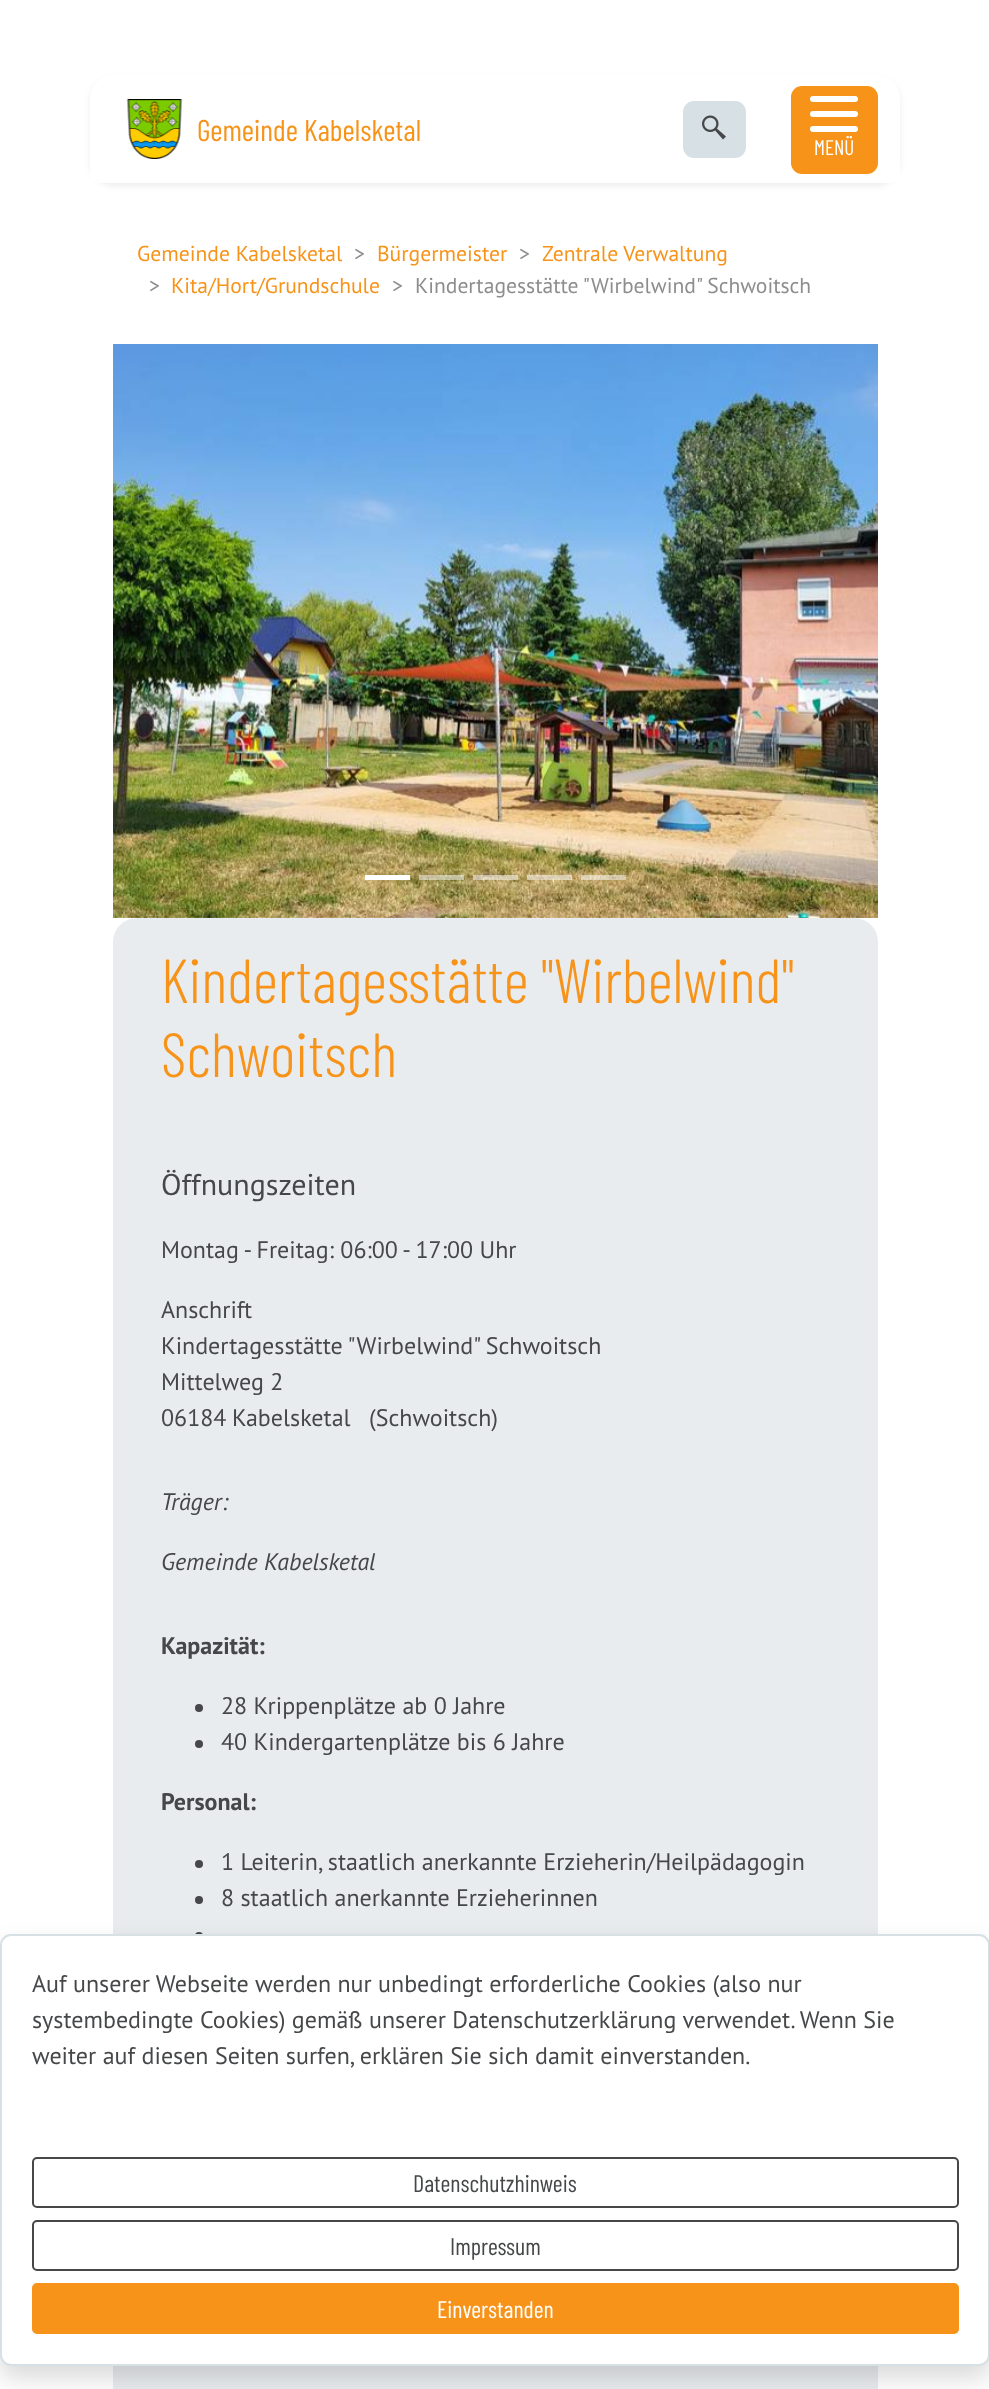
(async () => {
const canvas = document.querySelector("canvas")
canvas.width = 989
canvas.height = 2389
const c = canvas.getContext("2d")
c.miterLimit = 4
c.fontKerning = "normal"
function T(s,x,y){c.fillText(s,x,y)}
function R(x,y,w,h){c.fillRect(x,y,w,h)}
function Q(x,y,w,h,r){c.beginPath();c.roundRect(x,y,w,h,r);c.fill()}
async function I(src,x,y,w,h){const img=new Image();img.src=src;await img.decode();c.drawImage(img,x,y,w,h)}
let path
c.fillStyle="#fff"
R(0,0,989,2389)
c.save()
path = new Path2D("M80 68h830v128h-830zm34 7h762c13.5 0 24 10.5 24 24v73c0 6-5 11-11 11h-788c-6 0-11-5-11-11v-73c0-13.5 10.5-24 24-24z")
c.clip(path,"evenodd")
c.fillStyle="#00000012"
c.filter="blur(3px)"
c.beginPath()
c.roundRect(90,78,810,108,24)
c.fill()
c.filter="none"
c.restore()
await I("1.png",126,99,57,60)
c.font="30px Barlow Condensed"
c.fillStyle="#f79319"
T("Gemeinde Kabelsketal",197,141)
c.fillStyle="#d7e1e5"
c.beginPath()
c.roundRect(684,102,61,55,10)
c.fill()
c.strokeStyle="#d7e1e5"
c.lineWidth=2
c.stroke()
await I("2.png",702,115,24,25)
c.fillStyle="#f79319"
Q(791,86,87,88,11)
c.fillStyle="#fff"
Q(810,96,48,6,3)
Q(810,111,48,6,3)
Q(810,126,48,6,3)
c.font="21px Barlow Condensed"
T("MENÜ",814,155)
c.font="21.6px PT Sans"
c.fillStyle="#f79319"
T("Gemeinde Kabelsketal",137,261)
c.fillStyle="#8d8d8d"
T(">",354,261)
c.fillStyle="#f79319"
T("Bürgermeister",377,261)
c.fillStyle="#8d8d8d"
T(">",519,261)
c.fillStyle="#f79319"
T("Zentrale Verwaltung",542,261)
c.fillStyle="#8d8d8d"
T(">",149,293)
c.fillStyle="#f79319"
T("Kita/Hort/Grundschule",171,293)
c.fillStyle="#8d8d8d"
T(">",392,293)
T("Kindertagesstätte \"Wirbelwind\" Schwoitsch",415,293)
await I("3.png",113,344,765,574)
c.fillStyle="#fff"
R(365,875,45,5)
c.fillStyle="#ffffff80"
R(419,875,45,5)
R(473,875,45,5)
R(527,875,45,5)
R(581,875,45,5)
c.fillStyle="#e9ecef"
Q(113,918,765,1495,24)
c.font="300 62.1px Barlow Condensed"
c.fillStyle="#f79319"
T("Kindertagesstätte \"Wirbelwind\"",161,1003)
T("Schwoitsch",161,1077)
c.font="30px PT Sans"
c.fillStyle="#454749"
T("Öffnungszeiten",161,1195)
c.font="24px PT Sans"
T("Montag - Freitag: 06:00 - 17:00 Uhr",161,1258)
T("Anschrift",161,1318)
T("Kindertagesstätte \"Wirbelwind\" Schwoitsch",161,1354)
T("Mittelweg 2",161,1390)
T("06184",161,1426)
T("Kabelsketal",232,1426)
T("(Schwoitsch)",369,1426)
c.font="italic 24px PT Sans"
T("Träger:",161,1510)
T("Gemeinde Kabelsketal",161,1570)
c.font="bold 24px PT Sans"
T("Kapazität:",161,1654)
c.beginPath()
c.arc(199,1708,4,0,7)
c.fill()
c.font="24px PT Sans"
T("28 Krippenplätze ab 0 Jahre",221,1714)
c.beginPath()
c.arc(199,1744,4,0,7)
c.fill()
T("40 Kindergartenplätze bis 6 Jahre",221,1750)
c.font="bold 24px PT Sans"
T("Personal:",161,1810)
c.beginPath()
c.arc(199,1864,4,0,7)
c.fill()
c.font="24px PT Sans"
T("1 Leiterin, staatlich anerkannte Erzieherin/Heilpädagogin",221,1870)
c.beginPath()
c.arc(199,1900,4,0,7)
c.fill()
T("8 staatlich anerkannte Erzieherinnen",221,1906)
c.beginPath()
c.arc(199,1936,4,0,7)
c.fill()
c.fillStyle="#00000026"
c.filter="blur(12px)"
c.beginPath()
c.roundRect(0,1946,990,432,11)
c.fill()
c.filter="none"
c.fillStyle="#fff"
c.beginPath()
c.roundRect(1,1935,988,430,10)
c.fill()
c.stroke()
c.fillStyle="#454749"
T("Auf unserer Webseite werden nur unbedingt erforderliche Cookies (also nur",32,1992)
T("systembedingte Cookies) gemäß unserer Datenschutzerklärung verwendet. Wenn Sie",32,2028)
T("weiter auf diesen Seiten surfen, erklären Sie sich damit einverstanden.",32,2064)
c.beginPath()
c.roundRect(33,2158,925,49,4)
c.strokeStyle="#454749"
c.stroke()
c.font="24px Barlow Condensed"
T("Datenschutzhinweis",413,2192)
c.beginPath()
c.roundRect(33,2221,925,49,4)
c.stroke()
T("Impressum",450,2255)
c.fillStyle="#f79319"
c.beginPath()
c.roundRect(33,2284,925,49,4)
c.fill()
c.strokeStyle="#f79319"
c.stroke()
c.fillStyle="#fff"
T("Einverstanden",437,2318)
})()
